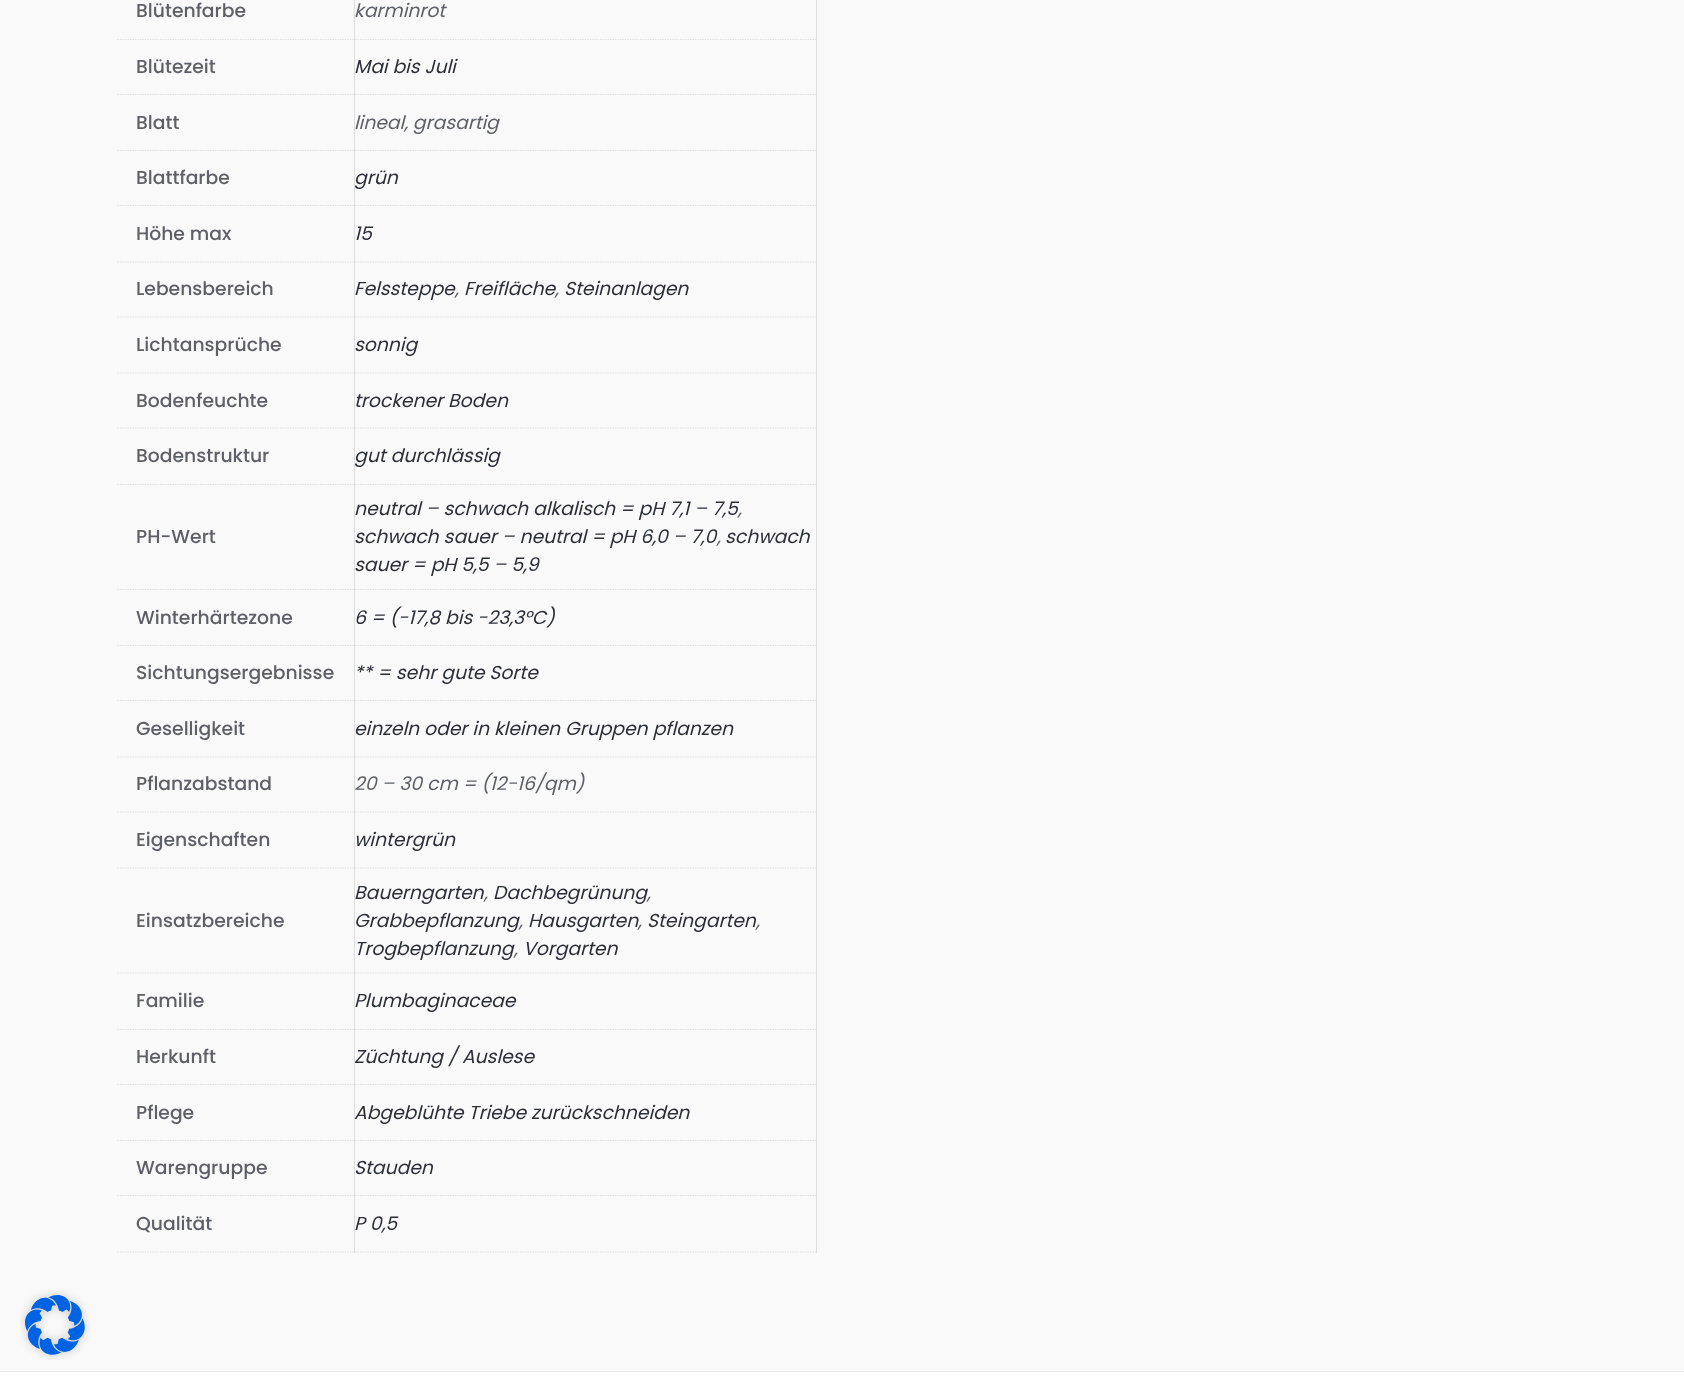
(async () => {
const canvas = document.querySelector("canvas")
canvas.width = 1684
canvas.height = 1379
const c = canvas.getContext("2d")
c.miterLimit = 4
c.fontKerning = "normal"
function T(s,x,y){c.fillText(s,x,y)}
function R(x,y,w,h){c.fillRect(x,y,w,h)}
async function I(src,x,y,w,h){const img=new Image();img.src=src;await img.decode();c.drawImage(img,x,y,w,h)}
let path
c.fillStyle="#f9f9f9"
R(0,0,1684,1379)
c.fillStyle="#ddd"
R(354,0,1,1253)
path = new Path2D("M117.5 39.5h237.5")
c.strokeStyle="#ddd"
c.lineWidth=1.2
c.setLineDash([1.25,1.25])
c.stroke(path)
c.font="500 18.75px Poppins"
c.fillStyle="#5d6167"
T("Blütenfarbe",136,17)
c.fillStyle="#ddd"
R(816,0,1,40)
path = new Path2D("M355 39.5h462.5")
c.stroke(path)
c.font="italic 18.75px Poppins"
c.fillStyle="#5d6167"
T("karminrot",354,17)
path = new Path2D("M117.5 94.5h237.5")
c.stroke(path)
c.font="500 18.75px Poppins"
T("Blütezeit",136,73)
c.fillStyle="#ddd"
R(816,40,1,55)
path = new Path2D("M355 94.5h462.5")
c.stroke(path)
c.font="italic 18.75px Poppins"
c.fillStyle="#2b2f38"
T("Mai bis Juli",354,73)
path = new Path2D("M117.5 150.5h237.5")
c.stroke(path)
c.font="500 18.75px Poppins"
c.fillStyle="#5d6167"
T("Blatt",136,129)
c.fillStyle="#ddd"
R(816,95,1,56)
path = new Path2D("M355 150.5h462.5")
c.stroke(path)
c.font="italic 18.75px Poppins"
c.fillStyle="#5d6167"
T("lineal, grasartig",354,129)
path = new Path2D("M117.5 205.5h237.5")
c.stroke(path)
c.font="500 18.75px Poppins"
T("Blattfarbe",136,184)
c.fillStyle="#ddd"
R(816,151,1,55)
path = new Path2D("M355 205.5h462.5")
c.stroke(path)
c.font="italic 18.75px Poppins"
c.fillStyle="#2b2f38"
T("grün",354,184)
path = new Path2D("M117.5 262h237.5")
c.stroke(path)
c.font="500 18.75px Poppins"
c.fillStyle="#5d6167"
T("Höhe max",136,240)
c.fillStyle="#ddd"
R(816,206,1,279)
path = new Path2D("M355 262h462.5")
c.stroke(path)
c.font="italic 18.75px Poppins"
c.fillStyle="#2b2f38"
T("15",354,240)
path = new Path2D("M117.5 317h237.5")
c.stroke(path)
c.font="500 18.75px Poppins"
c.fillStyle="#5d6167"
T("Lebensbereich",136,295)
path = new Path2D("M355 317h462.5")
c.stroke(path)
c.font="italic 18.75px Poppins"
c.fillStyle="#2b2f38"
T("Felssteppe",354,295)
c.fillStyle="#5d6167"
T(",",455,295)
c.fillStyle="#2b2f38"
T("Freifläche",464,295)
c.fillStyle="#5d6167"
T(",",555,295)
c.fillStyle="#2b2f38"
T("Steinanlagen",564,295)
path = new Path2D("M117.5 373h237.5")
c.stroke(path)
c.font="500 18.75px Poppins"
c.fillStyle="#5d6167"
T("Lichtansprüche",136,351)
path = new Path2D("M355 373h462.5")
c.stroke(path)
c.font="italic 18.75px Poppins"
c.fillStyle="#2b2f38"
T("sonnig",354,351)
path = new Path2D("M117.5 428h237.5")
c.stroke(path)
c.font="500 18.75px Poppins"
c.fillStyle="#5d6167"
T("Bodenfeuchte",136,407)
path = new Path2D("M355 428h462.5")
c.stroke(path)
c.font="italic 18.75px Poppins"
c.fillStyle="#2b2f38"
T("trockener Boden",354,407)
path = new Path2D("M117.5 484.5h237.5")
c.stroke(path)
c.font="500 18.75px Poppins"
c.fillStyle="#5d6167"
T("Bodenstruktur",136,462)
path = new Path2D("M355 484.5h462.5")
c.stroke(path)
c.font="italic 18.75px Poppins"
c.fillStyle="#2b2f38"
T("gut durchlässig",354,462)
path = new Path2D("M117.5 589.5h237.5")
c.stroke(path)
c.font="500 18.75px Poppins"
c.fillStyle="#5d6167"
T("PH-Wert",136,543)
c.fillStyle="#ddd"
R(816,485,1,105)
path = new Path2D("M355 589.5h462.5")
c.stroke(path)
c.font="italic 18.75px Poppins"
c.fillStyle="#2b2f38"
T("neutral – schwach alkalisch = pH 7,1 – 7,5",354,515)
c.fillStyle="#5d6167"
T(",",738,515)
c.fillStyle="#2b2f38"
T("schwach sauer – neutral = pH 6,0 – 7,0",354,543)
c.fillStyle="#5d6167"
T(",",717,543)
c.fillStyle="#2b2f38"
T("schwach",725,543)
T("sauer = pH 5,5 – 5,9",354,571)
path = new Path2D("M117.5 645.5h237.5")
c.stroke(path)
c.font="500 18.75px Poppins"
c.fillStyle="#5d6167"
T("Winterhärtezone",136,624)
c.fillStyle="#ddd"
R(816,590,1,56)
path = new Path2D("M355 645.5h462.5")
c.stroke(path)
c.font="italic 18.75px Poppins"
c.fillStyle="#2b2f38"
T("6 = (-17,8 bis -23,3°C)",354,624)
path = new Path2D("M117.5 700.5h237.5")
c.stroke(path)
c.font="500 18.75px Poppins"
c.fillStyle="#5d6167"
T("Sichtungsergebnisse",136,679)
c.fillStyle="#ddd"
R(816,646,1,55)
path = new Path2D("M355 700.5h462.5")
c.stroke(path)
c.font="italic 18.75px Poppins"
c.fillStyle="#2b2f38"
T("** = sehr gute Sorte",354,679)
path = new Path2D("M117.5 757h237.5")
c.stroke(path)
c.font="500 18.75px Poppins"
c.fillStyle="#5d6167"
T("Geselligkeit",136,735)
c.fillStyle="#ddd"
R(816,701,1,329)
path = new Path2D("M355 757h462.5")
c.stroke(path)
c.font="italic 18.75px Poppins"
c.fillStyle="#2b2f38"
T("einzeln oder in kleinen Gruppen pflanzen",354,735)
path = new Path2D("M117.5 812h237.5")
c.stroke(path)
c.font="500 18.75px Poppins"
c.fillStyle="#5d6167"
T("Pflanzabstand",136,790)
path = new Path2D("M355 812h462.5")
c.stroke(path)
c.font="italic 18.75px Poppins"
T("20 – 30 cm = (12-16/qm)",354,790)
path = new Path2D("M117.5 868h237.5")
c.stroke(path)
c.font="500 18.75px Poppins"
T("Eigenschaften",136,846)
path = new Path2D("M355 868h462.5")
c.stroke(path)
c.font="italic 18.75px Poppins"
c.fillStyle="#2b2f38"
T("wintergrün",354,846)
path = new Path2D("M117.5 973h237.5")
c.stroke(path)
c.font="500 18.75px Poppins"
c.fillStyle="#5d6167"
T("Einsatzbereiche",136,927)
path = new Path2D("M355 973h462.5")
c.stroke(path)
c.font="italic 18.75px Poppins"
c.fillStyle="#2b2f38"
T("Bauerngarten",354,899)
c.fillStyle="#5d6167"
T(",",484,899)
c.fillStyle="#2b2f38"
T("Dachbegrünung",493,899)
c.fillStyle="#5d6167"
T(",",647,899)
c.fillStyle="#2b2f38"
T("Grabbepflanzung",354,927)
T("Hausgarten",528,927)
T("Steingarten",647,927)
c.fillStyle="#5d6167"
T(",",519,927)
T(",",638,927)
T(",",756,927)
c.fillStyle="#2b2f38"
T("Trogbepflanzung",354,955)
T("Vorgarten",523,955)
c.fillStyle="#5d6167"
T(",",514,955)
path = new Path2D("M117.5 1029.5h237.5")
c.stroke(path)
c.font="500 18.75px Poppins"
T("Familie",136,1007)
path = new Path2D("M355 1029.5h462.5")
c.stroke(path)
c.font="italic 18.75px Poppins"
c.fillStyle="#2b2f38"
T("Plumbaginaceae",354,1007)
path = new Path2D("M117.5 1084.5h237.5")
c.stroke(path)
c.font="500 18.75px Poppins"
c.fillStyle="#5d6167"
T("Herkunft",136,1063)
c.fillStyle="#ddd"
R(816,1030,1,55)
path = new Path2D("M355 1084.5h462.5")
c.stroke(path)
c.font="italic 18.75px Poppins"
c.fillStyle="#2b2f38"
T("Züchtung / Auslese",354,1063)
path = new Path2D("M117.5 1140.5h237.5")
c.stroke(path)
c.font="500 18.75px Poppins"
c.fillStyle="#5d6167"
T("Pflege",136,1119)
c.fillStyle="#ddd"
R(816,1085,1,56)
path = new Path2D("M355 1140.5h462.5")
c.stroke(path)
c.font="italic 18.75px Poppins"
c.fillStyle="#2b2f38"
T("Abgeblühte Triebe zurückschneiden",354,1119)
path = new Path2D("M117.5 1195.5h237.5")
c.stroke(path)
c.font="500 18.75px Poppins"
c.fillStyle="#5d6167"
T("Warengruppe",136,1174)
c.fillStyle="#ddd"
R(816,1141,1,55)
path = new Path2D("M355 1195.5h462.5")
c.stroke(path)
c.font="italic 18.75px Poppins"
c.fillStyle="#2b2f38"
T("Stauden",354,1174)
path = new Path2D("M117.5 1252h237.5")
c.stroke(path)
c.font="500 18.75px Poppins"
c.fillStyle="#5d6167"
T("Qualität",136,1230)
c.fillStyle="#ddd"
R(816,1196,1,57)
path = new Path2D("M355 1252h462.5")
c.stroke(path)
c.font="italic 18.75px Poppins"
c.fillStyle="#2b2f38"
T("P 0,5",354,1230)
c.fillStyle="#fff"
R(0,1372,1684,7)
c.fillStyle="#eaeaea"
R(0,1371,1684,1)
await I("1.png",20,1290,70,70)
})()
